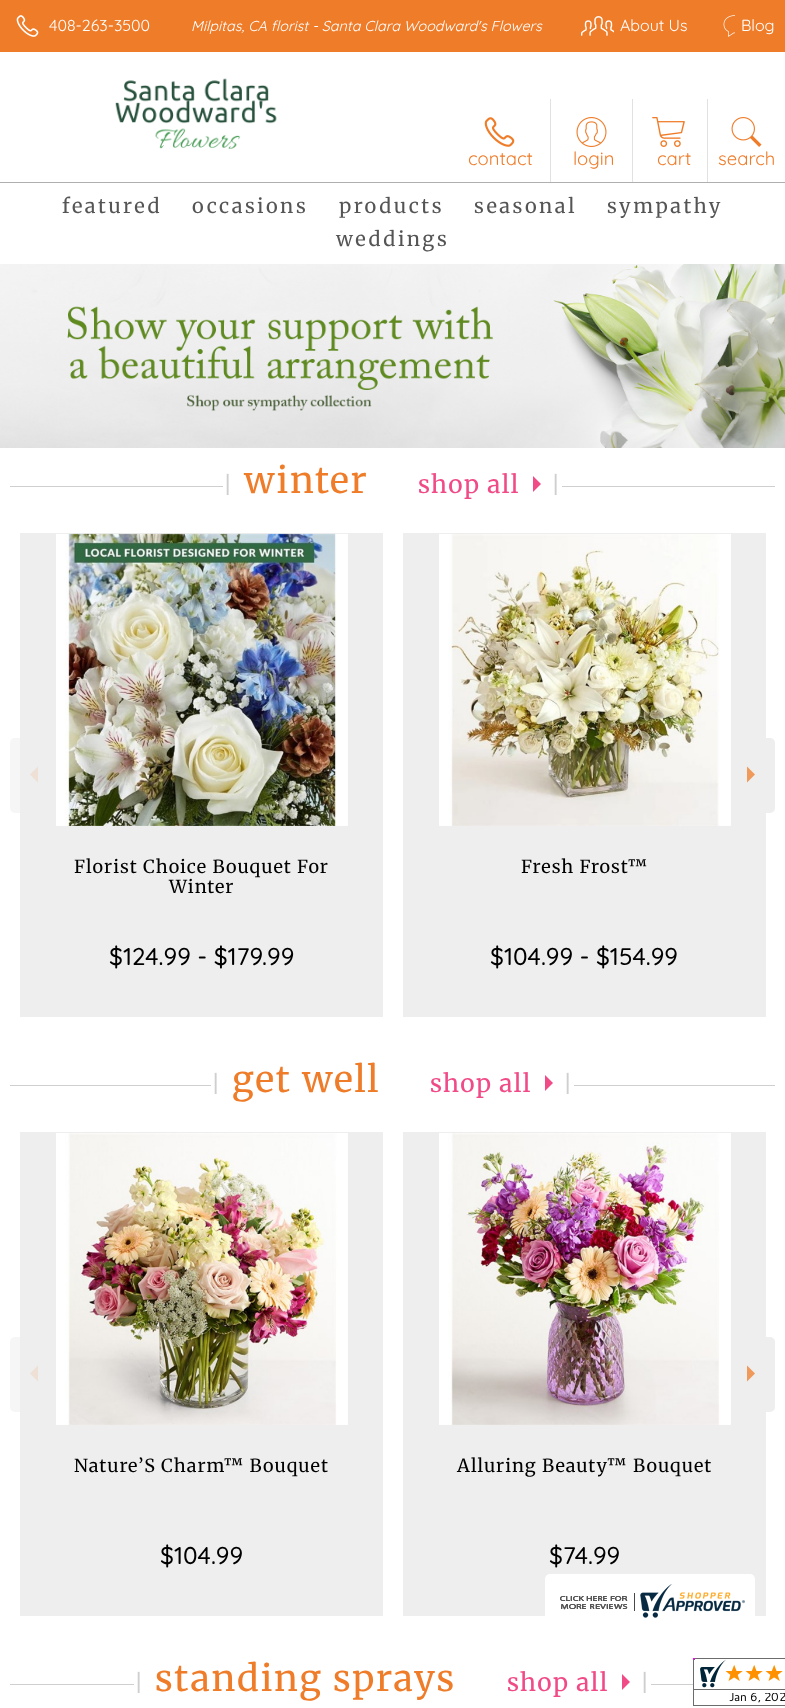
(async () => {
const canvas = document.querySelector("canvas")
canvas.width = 785
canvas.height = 1708
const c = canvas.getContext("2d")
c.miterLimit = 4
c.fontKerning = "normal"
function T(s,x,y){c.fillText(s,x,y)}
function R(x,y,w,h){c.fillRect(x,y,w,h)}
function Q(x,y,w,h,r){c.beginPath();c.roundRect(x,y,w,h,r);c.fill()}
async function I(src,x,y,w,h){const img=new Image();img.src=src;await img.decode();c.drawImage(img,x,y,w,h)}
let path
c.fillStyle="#fff"
R(0,0,785,1708)
c.fillStyle="#ef7c29"
R(0,0,785,52)
await I("1.png",16,15,23,22)
c.font="16px Quicksand"
c.fillStyle="#fff"
T("408-263-3500",49,31)
c.font="italic 14.4px Quicksand"
T("Milpitas, CA florist - Santa Clara Woodward's Flowers",191,31)
await I("2.png",581,16,33,20)
c.font="16px Quicksand"
T("About Us",620,31)
await I("3.png",723,15,12,22)
T("Blog",741,31)
await I("4.png",115,78,162,71)
await I("5.png",484,117,31,30)
c.font="18.5px Quicksand"
c.fillStyle="#ef7c29"
T("contact",468,165)
c.fillStyle="#e1e1e1"
R(632,99,1,83)
R(550,99,1,83)
await I("6.png",576,117,31,30)
c.fillStyle="#ef7c29"
T("login",573,165)
await I("7.png",652,117,33,30)
T("cart",657,165)
c.fillStyle="#e1e1e1"
R(707,99,1,83)
await I("8.png",731,117,31,30)
c.fillStyle="#ef7c29"
T("search",718,165)
c.fillStyle="#afafaf"
R(0,182,785,1)
c.letterSpacing="2.5px"
c.font="20px Merriweather"
c.fillStyle="#555"
T("featured",62,213)
T("occasions",192,213)
T("products",339,213)
T("seasonal",474,213)
T("sympathy",607,213)
T("weddings",336,246)
await I("9.png",0,264,785,184)
c.fillStyle="#cfcfcf"
R(10,486,765,1)
c.fillStyle="#fff"
R(223,486,339,1)
c.letterSpacing="1.75px"
c.font="22px Merriweather"
c.fillStyle="#cfcfcf"
T("|",223,493)
c.font="36px Merriweather"
c.fillStyle="#ef7c29"
T("winter",244,493)
c.letterSpacing="1.25px"
c.font="24.5px Merriweather"
c.fillStyle="#f04a87"
T("shop all",418,493)
path = new Path2D("M533 492v-16l8 8z")
c.fill(path)
c.letterSpacing="1.75px"
c.font="22px Merriweather"
c.fillStyle="#cfcfcf"
T("|",551,493)
c.fillStyle="#eee"
R(20,533,363,484)
c.fillStyle="#eeeeee80"
c.beginPath()
c.roundRect(10,738,43,75,[5,0,0,5])
c.fill()
c.fillStyle="#eee0d5"
path = new Path2D("M38 766.5v16l-8-8z")
c.fill(path)
c.fillStyle="#eee"
R(403,533,363,484)
c.beginPath()
c.roundRect(732,738,43,75,[0,5,5,0])
c.fill()
c.fillStyle="#ef995a"
path = new Path2D("M747 782.5v-16l8 8z")
c.fill(path)
await I("10.png",56,533,292,293)
c.letterSpacing="1px"
c.font="18px Merriweather"
c.fillStyle="#000"
T("Florist Choice Bouquet For",74,873)
T("Winter",169,893)
c.letterSpacing="0px"
c.font="500 24.25px Quicksand"
T("$124.99 - $179.99",109,965)
await I("11.png",439,534,292,292)
c.letterSpacing="1px"
c.font="18px Merriweather"
T("Fresh Frost™",521,873)
c.letterSpacing="0px"
c.font="500 24.25px Quicksand"
T("$104.99 - $154.99",490,965)
c.fillStyle="#cfcfcf"
R(10,1085,765,1)
c.fillStyle="#fff"
R(211,1085,363,1)
c.letterSpacing="1.75px"
c.font="22px Merriweather"
c.fillStyle="#cfcfcf"
T("|",211,1092)
c.font="36px Merriweather"
c.fillStyle="#ef7c29"
T("get well",232,1092)
c.letterSpacing="1.25px"
c.font="24.5px Merriweather"
c.fillStyle="#f04a87"
T("shop all",430,1092)
path = new Path2D("M545 1091v-16l8 8z")
c.fill(path)
c.letterSpacing="1.75px"
c.font="22px Merriweather"
c.fillStyle="#cfcfcf"
T("|",563,1092)
c.fillStyle="#eee"
R(20,1132,363,484)
c.fillStyle="#eeeeee80"
c.beginPath()
c.roundRect(10,1337,43,75,[5,0,0,5])
c.fill()
c.fillStyle="#eee0d5"
path = new Path2D("M38 1365.5v16l-8-8z")
c.fill(path)
c.fillStyle="#eee"
R(403,1132,363,484)
c.beginPath()
c.roundRect(732,1337,43,75,[0,5,5,0])
c.fill()
c.fillStyle="#ef995a"
path = new Path2D("M747 1381.5v-16l8 8z")
c.fill(path)
await I("12.png",56,1133,292,292)
c.letterSpacing="1px"
c.font="18px Merriweather"
c.fillStyle="#000"
T("Nature’S Charm™ Bouquet",74,1472)
c.letterSpacing="0px"
c.font="500 24.25px Quicksand"
T("$104.99",160,1564)
await I("13.png",439,1133,292,292)
c.letterSpacing="1px"
c.font="18px Merriweather"
T("Alluring Beauty™ Bouquet",457,1472)
c.letterSpacing="0px"
c.font="500 24.25px Quicksand"
T("$74.99",549,1564)
c.fillStyle="#cfcfcf"
R(10,1684,683,1)
c.fillStyle="#fff"
R(134,1684,517,1)
c.letterSpacing="1.75px"
c.font="22px Merriweather"
c.fillStyle="#cfcfcf"
T("|",134,1691)
c.font="36px Merriweather"
c.fillStyle="#ef7c29"
T("standing sprays",155,1691)
c.letterSpacing="1.25px"
c.font="24.5px Merriweather"
c.fillStyle="#f04a87"
T("shop all",507,1691)
path = new Path2D("M622 1690v-16l8 8z")
c.fill(path)
c.letterSpacing="1.75px"
c.font="22px Merriweather"
c.fillStyle="#cfcfcf"
T("|",640,1691)
c.fillStyle="#fff"
Q(545,1574,210,54,5)
await I("14.png",560,1584,185,34)
await I("15.png",693,1658,92,48)
})()
